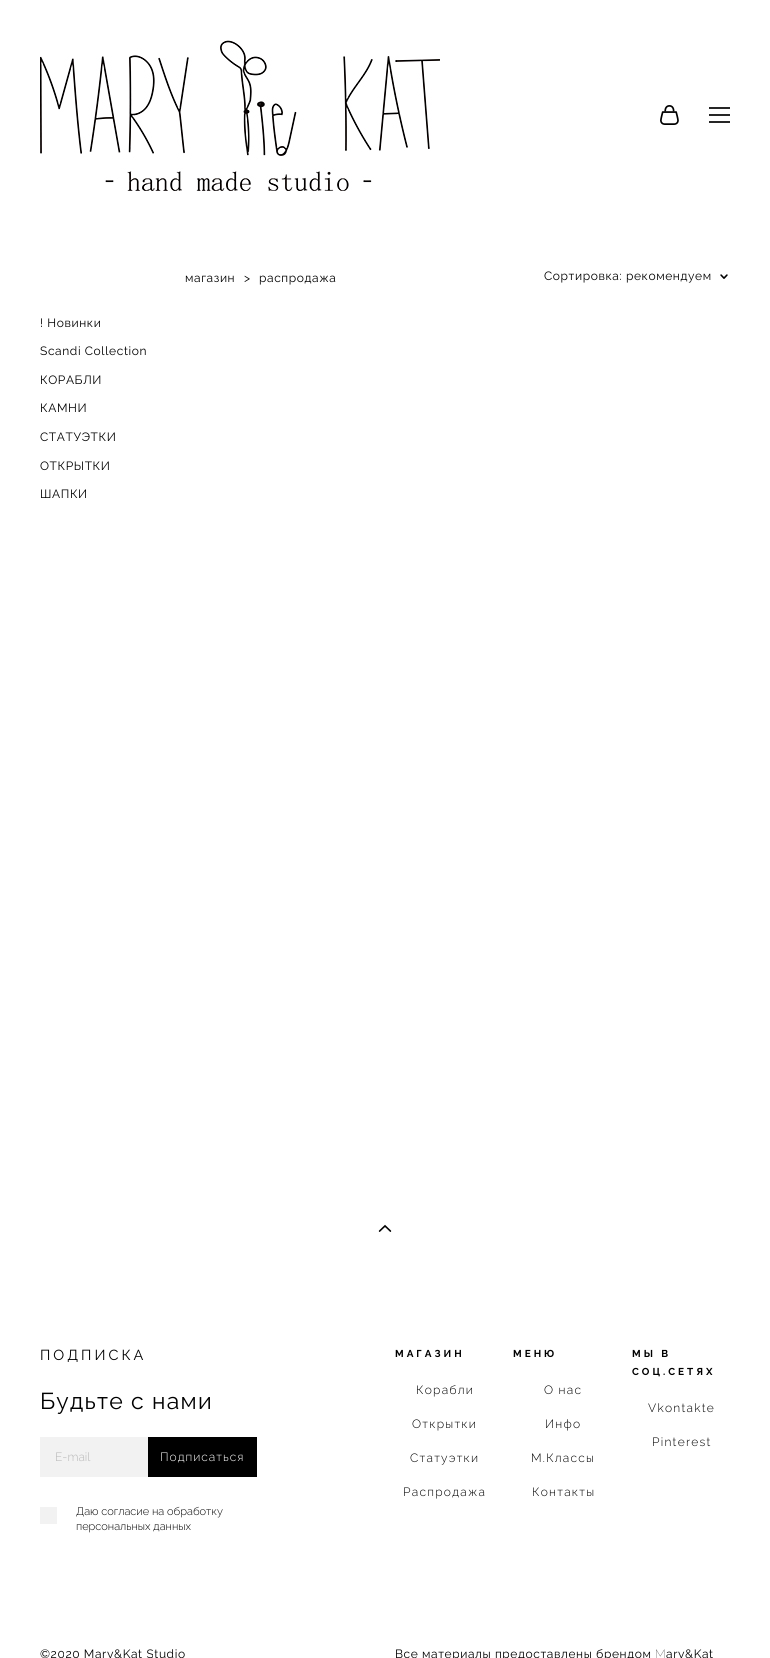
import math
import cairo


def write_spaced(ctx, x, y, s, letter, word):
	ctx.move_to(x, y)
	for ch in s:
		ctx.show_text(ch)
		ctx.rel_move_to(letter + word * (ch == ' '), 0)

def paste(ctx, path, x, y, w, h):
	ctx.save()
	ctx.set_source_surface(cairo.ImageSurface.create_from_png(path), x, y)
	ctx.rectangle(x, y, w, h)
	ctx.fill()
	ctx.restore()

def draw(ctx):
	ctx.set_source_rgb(1, 1, 1)
	ctx.paint()
	paste(ctx, 'media/1.png', 40, 40, 400, 151)
	paste(ctx, 'media/2.png', 660, 105, 19, 20)
	ctx.set_source_rgb(0.149, 0.149, 0.149)
	ctx.rectangle(709, 107, 21, 2)
	ctx.rectangle(709, 114, 21, 2)
	ctx.rectangle(709, 121, 21, 2)
	ctx.fill()
	ctx.select_font_face('Raleway')
	ctx.set_font_size(12)
	ctx.set_source_rgb(0, 0, 0)
	for x, y, s in [
		(185, 282, 'магазин'),
		(244, 282, '>'),
		(259, 282, 'распродажа'),
		(544, 280, 'Сортировка: рекомендуем'),
	]:
		write_spaced(ctx, x, y, s, 0.6, 0)
	paste(ctx, 'media/3.png', 720, 274, 8, 5)
	for x, y, s in [
		(40, 327, '! Новинки'),
		(40, 355, 'Scandi Collection'),
		(40, 384, 'КОРАБЛИ'),
		(40, 412, 'КАМНИ'),
		(40, 441, 'СТАТУЭТКИ'),
		(40, 470, 'ОТКРЫТКИ'),
		(40, 498, 'ШАПКИ'),
	]:
		write_spaced(ctx, x, y, s, 0.6, 0)
	paste(ctx, 'media/4.png', 378, 1224, 14, 8)
	ctx.set_font_size(14.5)
	write_spaced(ctx, 40, 1360, 'ПОДПИСКА', 3, 0)
	ctx.set_font_size(23)
	write_spaced(ctx, 40, 1409, 'Будьте с нами', 1.25, 0)
	ctx.set_source_rgb(0.949, 0.949, 0.949)
	ctx.rectangle(40, 1437, 108, 40)
	ctx.fill()
	ctx.select_font_face('Raleway Light')
	ctx.set_font_size(12)
	ctx.set_source_rgb(0.722, 0.722, 0.722)
	ctx.move_to(55, 1461)
	ctx.show_text('E-mail')
	ctx.set_source_rgb(0, 0, 0)
	ctx.rectangle(148, 1437, 109, 40)
	ctx.fill()
	ctx.set_source_rgb(1, 1, 1)
	write_spaced(ctx, 160, 1461, 'Подписаться', 1, 0)
	ctx.set_source_rgb(0.949, 0.949, 0.949)
	ctx.rectangle(40, 1507, 17, 17)
	ctx.fill()
	ctx.set_font_size(11)
	ctx.set_source_rgb(0, 0, 0)
	ctx.move_to(76, 1515)
	ctx.show_text('Даю согласие на обработку')
	ctx.move_to(76, 1530)
	ctx.show_text('персональных данных')
	ctx.select_font_face('Raleway', cairo.FONT_SLANT_NORMAL, cairo.FONT_WEIGHT_BOLD)
	ctx.set_font_size(10)
	write_spaced(ctx, 395, 1357, 'МАГАЗИН', 3, 0)
	ctx.select_font_face('Raleway Light')
	ctx.set_font_size(12)
	for x, y, s in [
		(416, 1394, 'Корабли'),
		(412, 1428, 'Открытки'),
		(410, 1462, 'Статуэтки'),
		(403, 1496, 'Распродажа'),
	]:
		write_spaced(ctx, x, y, s, 1.25, 0)
	ctx.select_font_face('Raleway', cairo.FONT_SLANT_NORMAL, cairo.FONT_WEIGHT_BOLD)
	ctx.set_font_size(10)
	write_spaced(ctx, 513, 1357, 'МЕНЮ', 3, 0)
	ctx.select_font_face('Raleway Light')
	ctx.set_font_size(12)
	for x, y, s in [
		(544, 1394, 'О нас'),
		(545, 1428, 'Инфо'),
		(531, 1462, 'М.Классы'),
		(532, 1496, 'Контакты'),
	]:
		write_spaced(ctx, x, y, s, 1.25, 0)
	ctx.select_font_face('Raleway', cairo.FONT_SLANT_NORMAL, cairo.FONT_WEIGHT_BOLD)
	ctx.set_font_size(10)
	write_spaced(ctx, 632, 1357, 'МЫ В', 3, 0)
	write_spaced(ctx, 632, 1375, 'СОЦ.СЕТЯХ', 3, 0)
	ctx.select_font_face('Raleway Light')
	ctx.set_font_size(12)
	write_spaced(ctx, 648, 1412, 'Vkontakte', 1.25, 0)
	write_spaced(ctx, 652, 1446, 'Pinterest', 1.25, 0)
	ctx.select_font_face('Raleway')
	write_spaced(ctx, 40, 1658, '©2020 Mary&Kat Studio', 0.6, 0)
	write_spaced(ctx, 395, 1658, 'Все материалы предоставлены брендом', 0.6, 0)
	ctx.select_font_face('Raleway Thin')
	write_spaced(ctx, 655, 1658, 'M', 0.6, 0)
	ctx.select_font_face('Raleway')
	write_spaced(ctx, 666, 1658, 'ary&Kat', 0.6, 0)


surface = cairo.ImageSurface(cairo.FORMAT_RGB24, 770, 1658)
ctx = cairo.Context(surface)
options = cairo.FontOptions()
options.set_hint_metrics(cairo.HINT_METRICS_OFF)
options.set_hint_style(cairo.HINT_STYLE_NONE)
ctx.set_font_options(options)
ctx.set_miter_limit(4)
draw(ctx)
surface.write_to_png('image.png')
